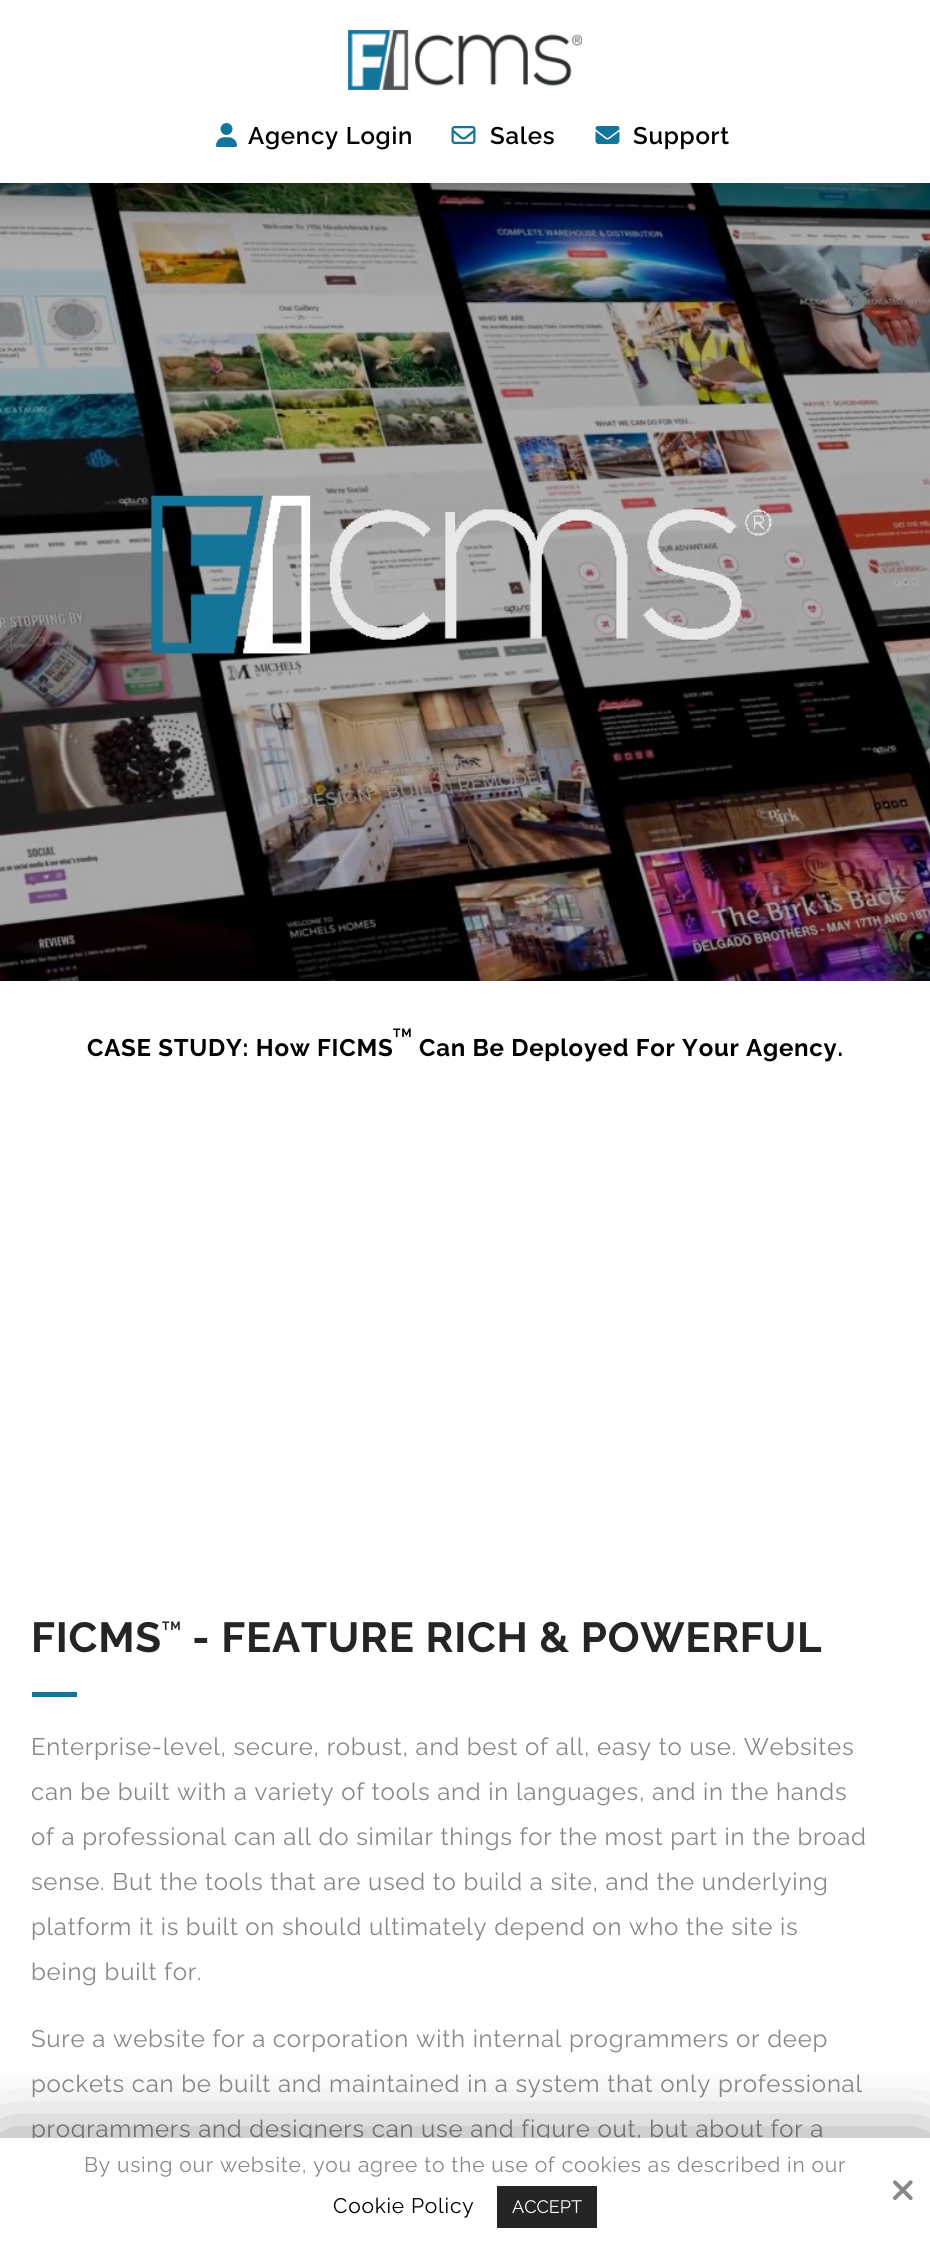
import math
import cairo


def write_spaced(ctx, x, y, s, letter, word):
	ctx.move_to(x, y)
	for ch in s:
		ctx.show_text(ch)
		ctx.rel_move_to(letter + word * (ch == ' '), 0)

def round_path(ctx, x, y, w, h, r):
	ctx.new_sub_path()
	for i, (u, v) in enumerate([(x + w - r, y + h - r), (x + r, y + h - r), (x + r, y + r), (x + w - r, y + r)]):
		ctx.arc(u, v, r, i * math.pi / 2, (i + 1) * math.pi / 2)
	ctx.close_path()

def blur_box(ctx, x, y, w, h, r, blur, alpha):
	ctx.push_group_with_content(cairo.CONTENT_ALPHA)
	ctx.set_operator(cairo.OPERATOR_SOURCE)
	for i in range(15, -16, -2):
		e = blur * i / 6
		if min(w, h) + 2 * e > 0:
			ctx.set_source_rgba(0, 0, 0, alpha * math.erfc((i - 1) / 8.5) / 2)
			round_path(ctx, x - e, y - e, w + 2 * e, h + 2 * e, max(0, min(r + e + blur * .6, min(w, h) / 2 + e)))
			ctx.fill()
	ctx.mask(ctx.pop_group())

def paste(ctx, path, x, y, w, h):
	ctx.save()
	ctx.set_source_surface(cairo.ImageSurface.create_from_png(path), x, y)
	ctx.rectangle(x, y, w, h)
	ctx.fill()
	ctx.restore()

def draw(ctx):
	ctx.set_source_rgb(1, 1, 1)
	ctx.paint()
	paste(ctx, 'media/1.png', 348, 30, 234, 60)
	paste(ctx, 'media/2.png', 216, 123, 21, 24)
	ctx.select_font_face('Raleway SemiBold')
	ctx.set_font_size(24)
	ctx.set_source_rgb(0, 0, 0)
	write_spaced(ctx, 248, 144, 'Agency Login', 0.75, 0)
	paste(ctx, 'media/3.png', 451, 126, 25, 18)
	write_spaced(ctx, 490, 144, 'Sales', 0.75, 0)
	paste(ctx, 'media/4.png', 595, 126, 25, 18)
	write_spaced(ctx, 633, 144, 'Support', 0.75, 0)
	paste(ctx, 'media/5.png', 0, 183, 930, 798)
	ctx.select_font_face('Raleway', cairo.FONT_SLANT_NORMAL, cairo.FONT_WEIGHT_BOLD)
	ctx.set_font_size(12)
	write_spaced(ctx, 393, 1037, 'TM', 0.75, 0)
	ctx.set_font_size(24)
	write_spaced(ctx, 87, 1056, 'CASE STUDY: How FICMS', 0.75, 0)
	write_spaced(ctx, 419, 1056, 'Can Be Deployed For Your Agency.', 0.75, 0)
	ctx.set_font_size(42)
	ctx.set_source_rgb(0.145, 0.145, 0.145)
	write_spaced(ctx, 31, 1652, 'FICMS', 0.75, 0)
	ctx.set_font_size(12)
	write_spaced(ctx, 162, 1630, 'TM', 0.75, 0)
	ctx.set_font_size(42)
	write_spaced(ctx, 192, 1652, '- FEATURE RICH & POWERFUL', 0.75, 0)
	ctx.set_source_rgb(0.078, 0.459, 0.608)
	ctx.rectangle(32, 1692, 45, 5)
	ctx.fill()
	ctx.select_font_face('Raleway')
	ctx.set_font_size(24)
	ctx.set_source_rgb(0.533, 0.533, 0.533)
	for x, y, s in [
		(31, 1755, 'Enterprise-level, secure, robust, and best of all, easy to use. Websites'),
		(31, 1800, 'can be built with a variety of tools and in languages, and in the hands'),
		(31, 1845, 'of a professional can all do similar things for the most part in the broad'),
		(31, 1890, 'sense. But the tools that are used to build a site, and the underlying'),
		(31, 1935, 'platform it is built on should ultimately depend on who the site is'),
		(31, 1980, 'being built for.'),
		(31, 2047, 'Sure a website for a corporation with internal programmers or deep'),
		(31, 2092, 'pockets can be built and maintained in a system that only professional'),
		(31, 2137, 'programmers and designers can use and figure out, but about for a'),
	]:
		write_spaced(ctx, x, y, s, 0.75, 0)
	ctx.set_source_rgb(0, 0, 0)
	blur_box(ctx, 0, 2145, 930, 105, 0, 37.5, 0.5)
	ctx.set_source_rgb(1, 1, 1)
	ctx.rectangle(0, 2138, 930, 104)
	ctx.fill()
	ctx.set_font_size(21)
	ctx.set_source_rgb(0.533, 0.533, 0.533)
	write_spaced(ctx, 84, 2172, 'By using our website, you agree to the use of cookies as described in our', 0.75, 0)
	ctx.set_source_rgb(0, 0, 0)
	write_spaced(ctx, 333, 2213, 'Cookie Policy', 0.75, 0)
	ctx.set_source_rgb(0.145, 0.145, 0.145)
	ctx.rectangle(497, 2186, 100, 42)
	ctx.fill()
	ctx.set_font_size(18)
	ctx.set_source_rgb(1, 1, 1)
	ctx.move_to(512, 2213)
	ctx.show_text('ACCEPT')
	paste(ctx, 'media/6.png', 893, 2180, 20, 20)


surface = cairo.ImageSurface(cairo.FORMAT_RGB24, 930, 2242)
ctx = cairo.Context(surface)
options = cairo.FontOptions()
options.set_hint_metrics(cairo.HINT_METRICS_OFF)
options.set_hint_style(cairo.HINT_STYLE_NONE)
ctx.set_font_options(options)
ctx.set_miter_limit(4)
draw(ctx)
surface.write_to_png('image.png')
